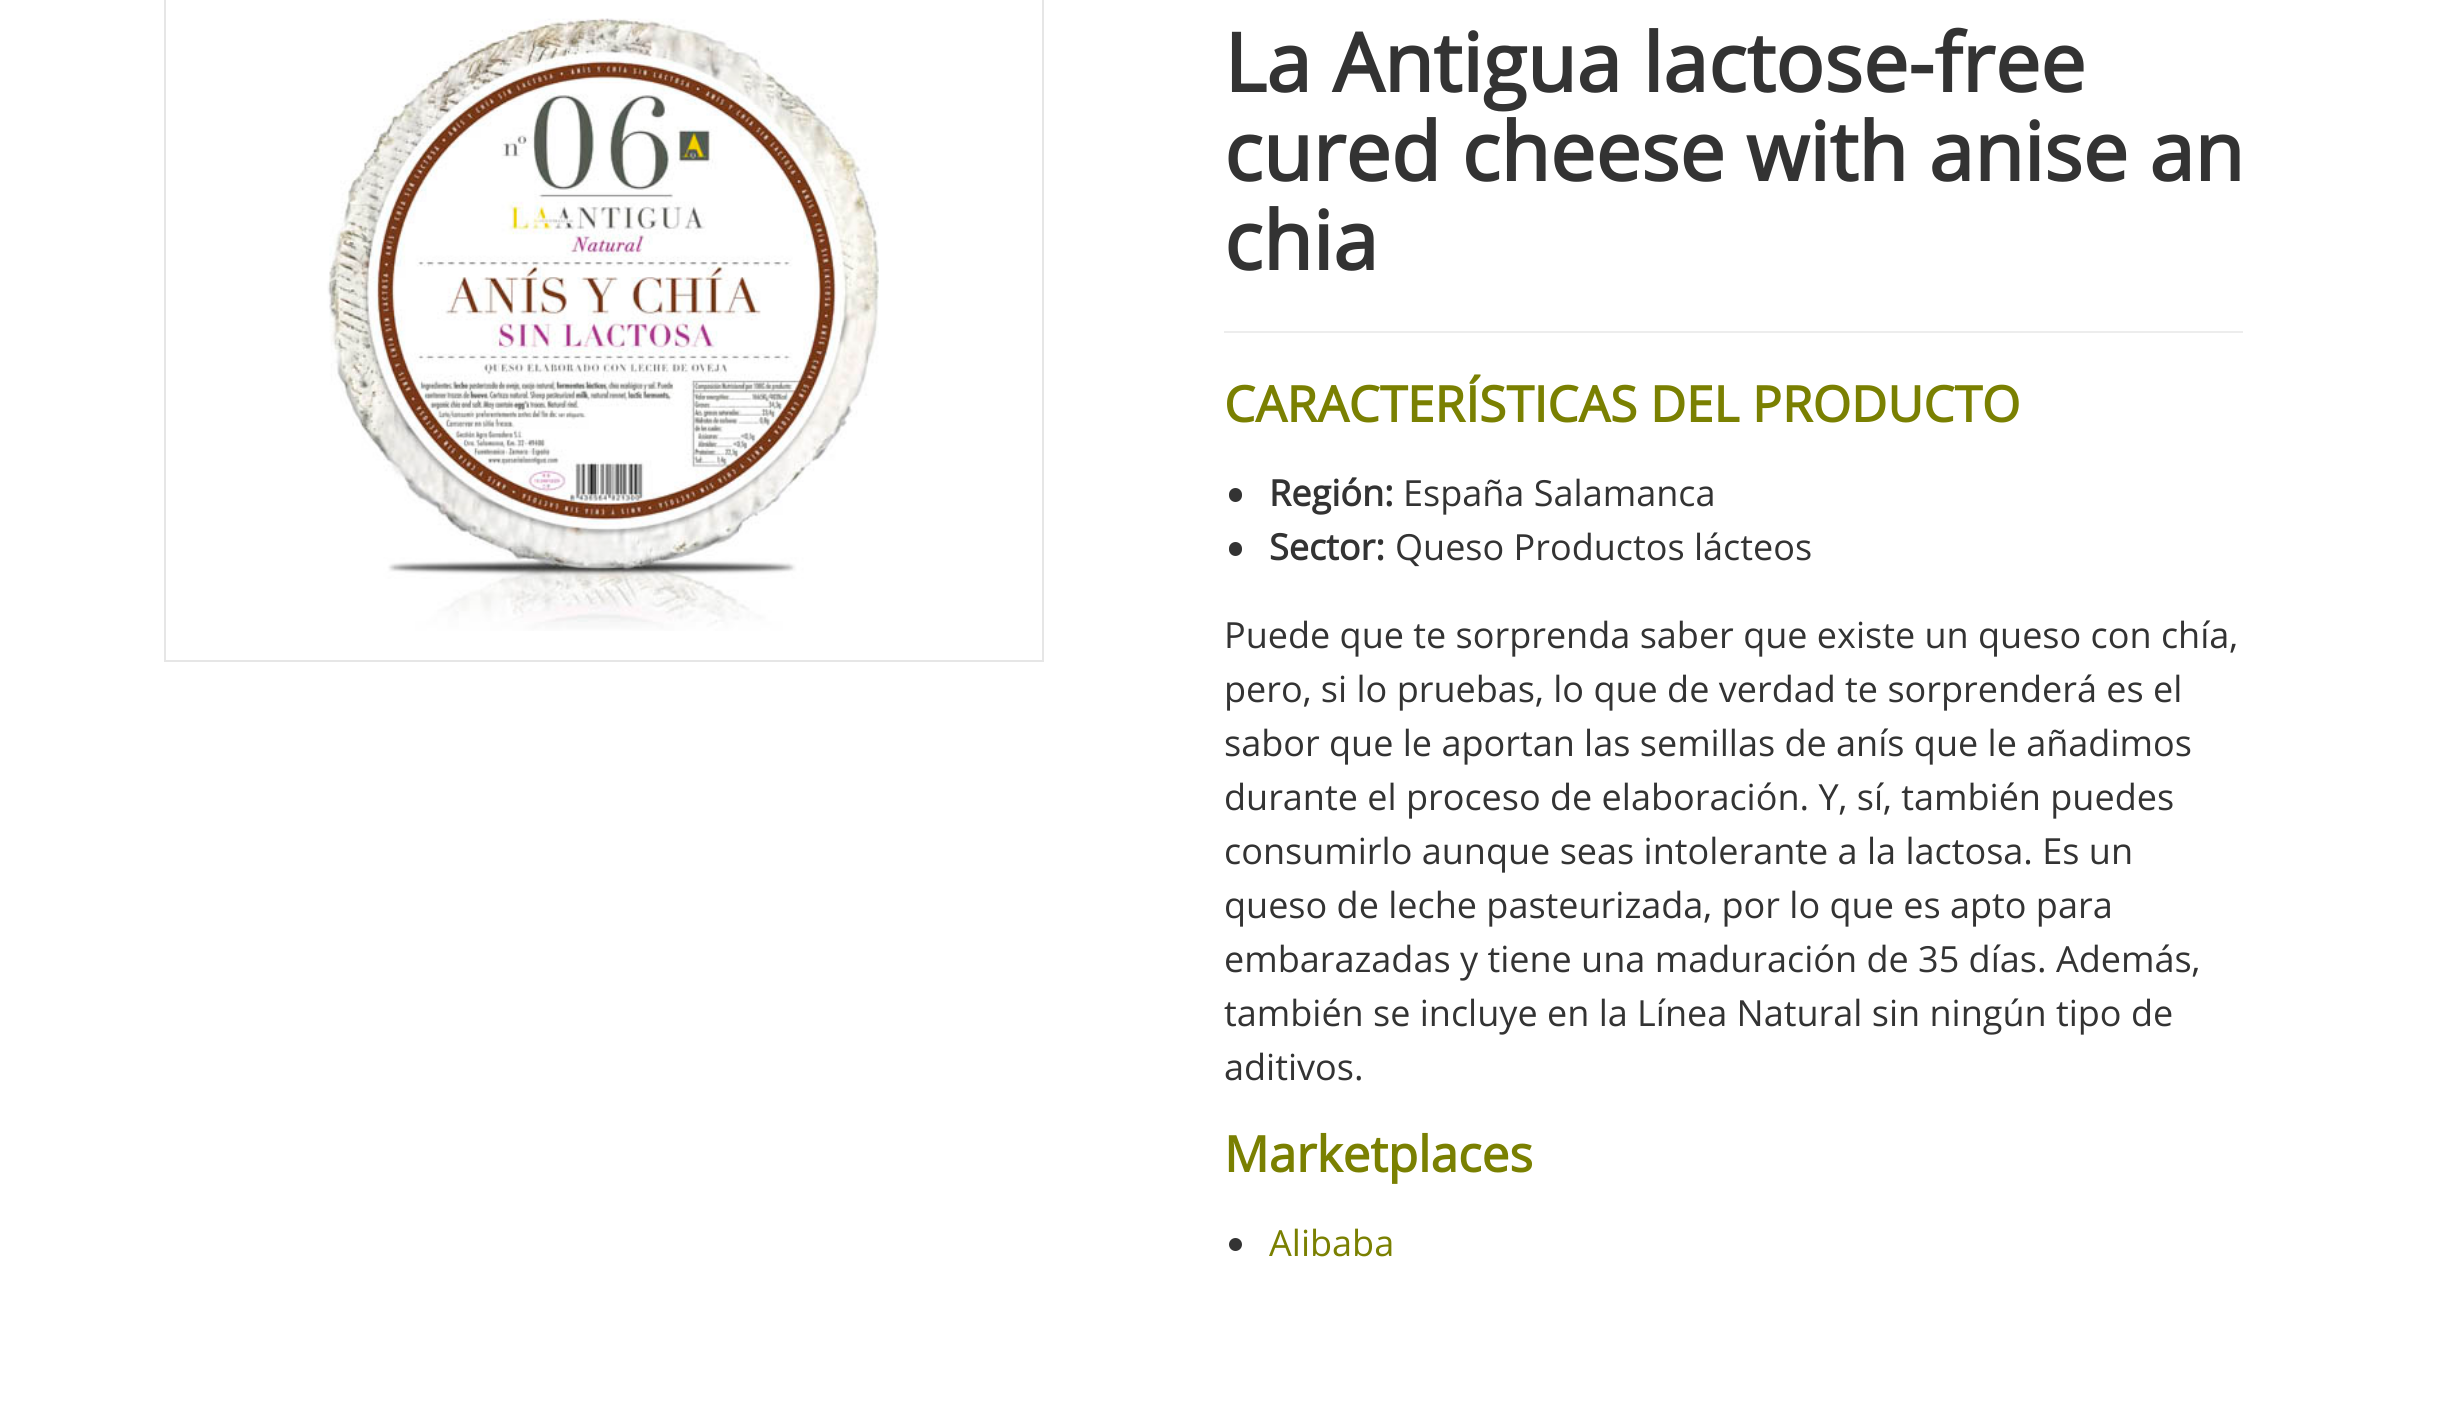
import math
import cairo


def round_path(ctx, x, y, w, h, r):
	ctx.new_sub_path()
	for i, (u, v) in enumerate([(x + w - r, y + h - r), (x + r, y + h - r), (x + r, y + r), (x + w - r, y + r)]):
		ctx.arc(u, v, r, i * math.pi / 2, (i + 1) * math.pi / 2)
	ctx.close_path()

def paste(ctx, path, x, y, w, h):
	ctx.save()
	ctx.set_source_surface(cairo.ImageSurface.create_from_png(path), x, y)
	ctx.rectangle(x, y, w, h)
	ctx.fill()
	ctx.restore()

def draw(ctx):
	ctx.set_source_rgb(1, 1, 1)
	ctx.paint()
	ctx.rectangle(165, -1, 878, 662)
	ctx.set_source_rgb(0.902, 0.902, 0.902)
	ctx.stroke()
	paste(ctx, 'media/1.png', 327, 18, 552, 613)
	ctx.select_font_face('Open Sans', cairo.FONT_SLANT_NORMAL, cairo.FONT_WEIGHT_BOLD)
	ctx.set_font_size(81)
	ctx.set_source_rgb(0.2, 0.2, 0.2)
	for x, y, s in [
		(1224, 92, 'La Antigua lactose-free'),
		(1224, 181, 'cured cheese with anise an'),
		(1224, 270, 'chia'),
	]:
		ctx.move_to(x, y)
		ctx.show_text(s)
	ctx.set_source_rgb(0.929, 0.929, 0.929)
	ctx.rectangle(1224, 331, 1019, 2)
	ctx.fill()
	ctx.set_font_size(49.5)
	ctx.set_source_rgb(0.478, 0.502, 0.004)
	ctx.move_to(1224, 422)
	ctx.show_text('CARACTERÍSTICAS DEL PRODUCTO')
	ctx.set_source_rgb(0.2, 0.2, 0.2)
	round_path(ctx, 1229, 488, 13, 14, 6.5)
	ctx.fill()
	ctx.set_font_size(36)
	ctx.move_to(1269, 506)
	ctx.show_text('Región:')
	ctx.select_font_face('Open Sans')
	ctx.move_to(1403, 506)
	ctx.show_text('España Salamanca')
	round_path(ctx, 1229, 542, 13, 14, 6.5)
	ctx.fill()
	ctx.select_font_face('Open Sans', cairo.FONT_SLANT_NORMAL, cairo.FONT_WEIGHT_BOLD)
	ctx.move_to(1269, 560)
	ctx.show_text('Sector:')
	ctx.select_font_face('Open Sans')
	for x, y, s in [
		(1395, 560, 'Queso Productos lácteos'),
		(1224, 648, 'Puede que te sorprenda saber que existe un queso con chía,'),
		(1224, 702, 'pero, si lo pruebas, lo que de verdad te sorprenderá es el'),
		(1224, 756, 'sabor que le aportan las semillas de anís que le añadimos'),
		(1224, 810, 'durante el proceso de elaboración. Y, sí, también puedes'),
		(1224, 864, 'consumirlo aunque seas intolerante a la lactosa. Es un'),
		(1224, 918, 'queso de leche pasteurizada, por lo que es apto para'),
		(1224, 972, 'embarazadas y tiene una maduración de 35 días. Además,'),
		(1224, 1026, 'también se incluye en la Línea Natural sin ningún tipo de'),
		(1224, 1080, 'aditivos.'),
	]:
		ctx.move_to(x, y)
		ctx.show_text(s)
	ctx.select_font_face('Open Sans', cairo.FONT_SLANT_NORMAL, cairo.FONT_WEIGHT_BOLD)
	ctx.set_font_size(49.5)
	ctx.set_source_rgb(0.478, 0.502, 0.004)
	ctx.move_to(1224, 1172)
	ctx.show_text('Marketplaces')
	ctx.set_source_rgb(0.2, 0.2, 0.2)
	ctx.new_path()
	ctx.arc(1235.5, 1244.5, 6.5, 0, 2 * math.pi)
	ctx.fill()
	ctx.select_font_face('Open Sans')
	ctx.set_font_size(36)
	ctx.set_source_rgb(0.478, 0.502, 0.004)
	ctx.move_to(1269, 1256)
	ctx.show_text('Alibaba')


surface = cairo.ImageSurface(cairo.FORMAT_RGB24, 2440, 1412)
ctx = cairo.Context(surface)
options = cairo.FontOptions()
options.set_hint_metrics(cairo.HINT_METRICS_OFF)
options.set_hint_style(cairo.HINT_STYLE_NONE)
ctx.set_font_options(options)
ctx.set_miter_limit(4)
draw(ctx)
surface.write_to_png('image.png')
